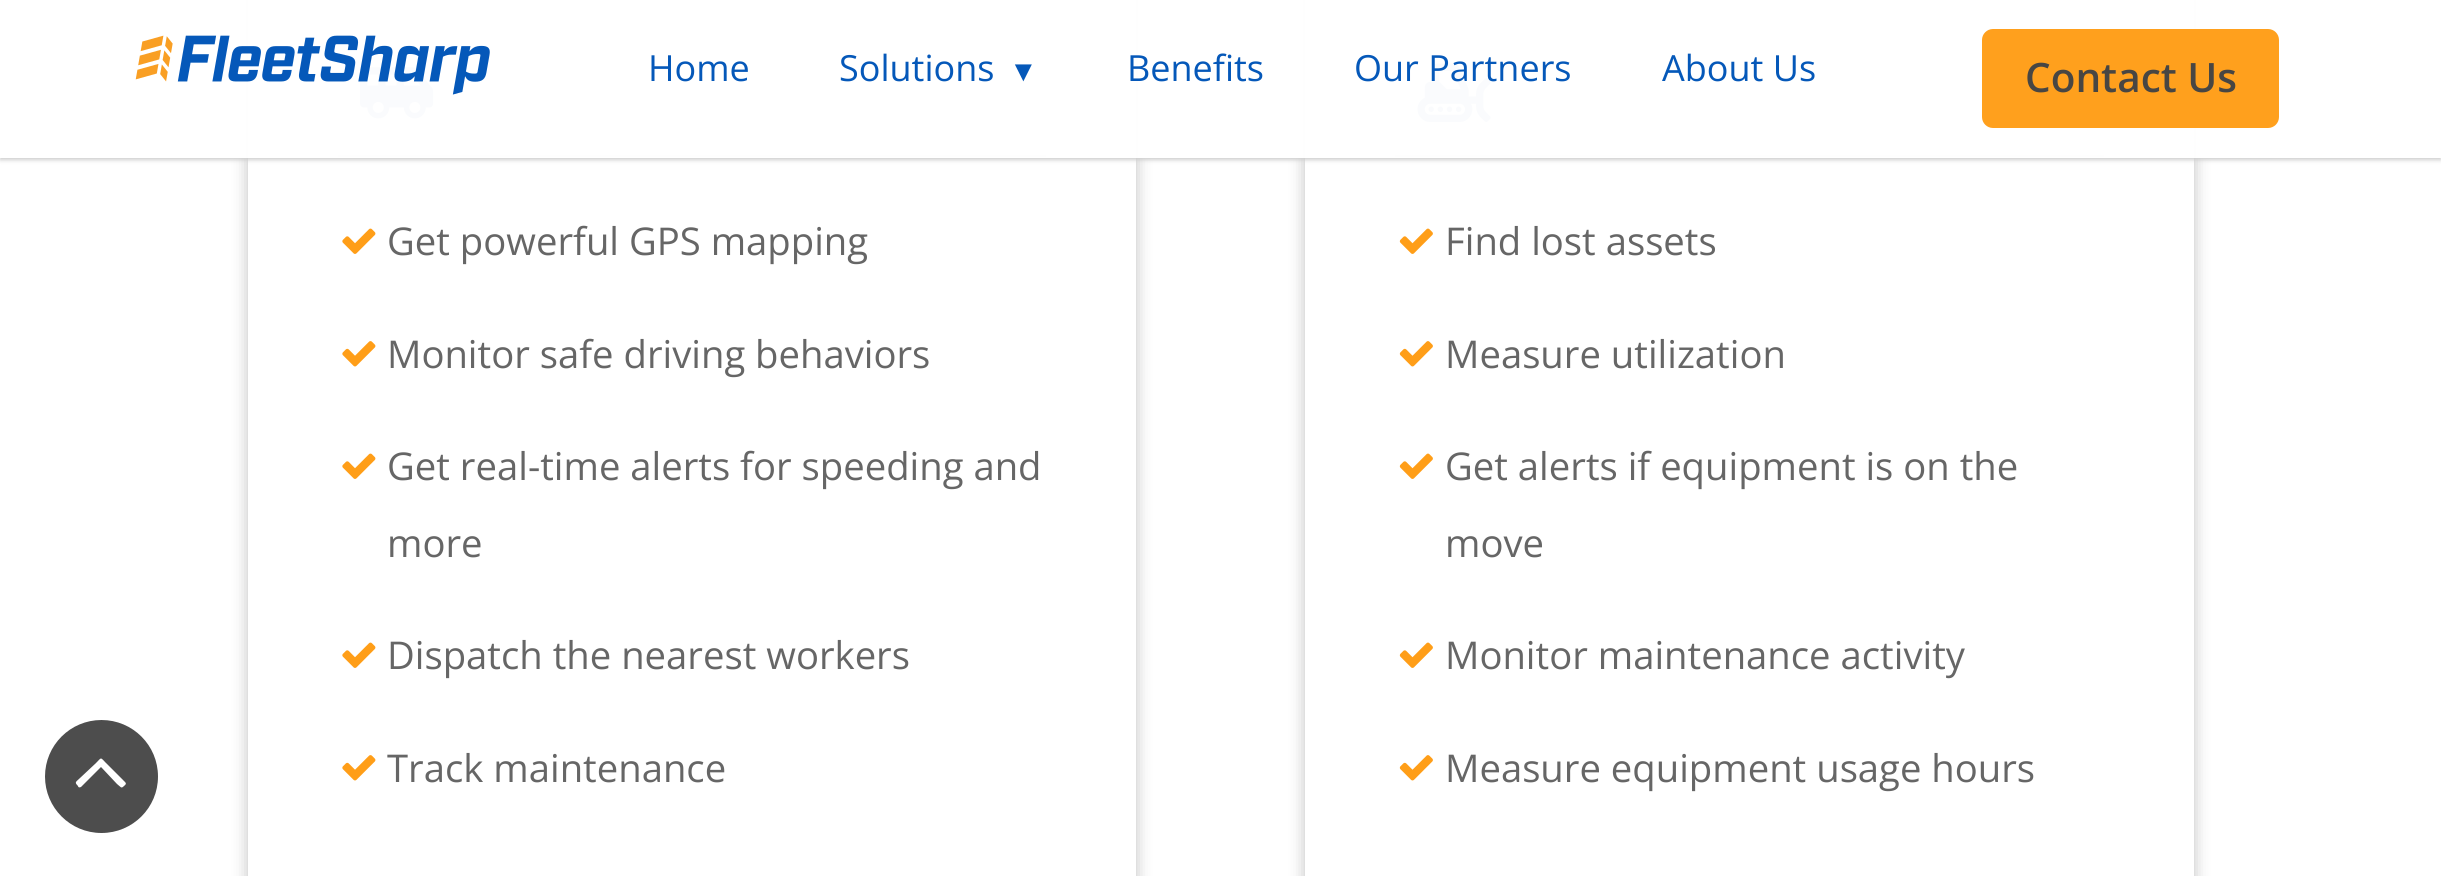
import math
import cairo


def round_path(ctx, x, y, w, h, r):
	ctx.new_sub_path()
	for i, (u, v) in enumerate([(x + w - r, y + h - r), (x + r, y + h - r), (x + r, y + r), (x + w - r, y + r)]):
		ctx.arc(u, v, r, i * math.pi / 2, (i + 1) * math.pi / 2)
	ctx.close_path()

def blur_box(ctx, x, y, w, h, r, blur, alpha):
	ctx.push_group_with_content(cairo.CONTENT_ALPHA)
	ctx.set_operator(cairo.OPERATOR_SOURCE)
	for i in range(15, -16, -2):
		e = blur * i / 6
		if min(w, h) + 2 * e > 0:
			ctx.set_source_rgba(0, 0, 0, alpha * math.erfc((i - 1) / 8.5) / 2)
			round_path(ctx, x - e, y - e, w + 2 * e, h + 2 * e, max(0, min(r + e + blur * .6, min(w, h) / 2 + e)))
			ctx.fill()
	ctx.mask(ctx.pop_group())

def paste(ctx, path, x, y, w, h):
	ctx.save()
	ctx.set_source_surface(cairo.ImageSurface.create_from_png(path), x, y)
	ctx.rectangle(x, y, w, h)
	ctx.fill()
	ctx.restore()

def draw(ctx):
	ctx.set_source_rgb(1, 1, 1)
	ctx.paint()
	ctx.set_source_rgb(0.302, 0.302, 0.302)
	ctx.arc(101.5, 776.5, 56.5, 0, 2 * math.pi)
	ctx.fill()
	ctx.set_source_rgb(1, 1, 1)
	ctx.new_path()
	ctx.move_to(125, 782)
	ctx.curve_to(127, 784, 125, 785, 124, 786)
	ctx.curve_to(121, 789, 121, 787, 117, 784)
	ctx.line_to(101, 767)
	ctx.line_to(81, 787)
	ctx.curve_to(79, 788, 78, 787, 78, 786)
	ctx.curve_to(74, 782, 76, 782, 80, 778)
	ctx.line_to(96, 763)
	ctx.curve_to(102, 757, 100, 757, 106, 763)
	ctx.close_path()
	ctx.fill()
	ctx.save()
	ctx.set_fill_rule(cairo.FILL_RULE_EVEN_ODD)
	ctx.new_path()
	ctx.move_to(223, 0)
	ctx.line_to(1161, 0)
	ctx.line_to(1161, 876)
	ctx.line_to(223, 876)
	ctx.close_path()
	ctx.move_to(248, -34)
	ctx.line_to(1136, -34)
	ctx.line_to(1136, 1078)
	ctx.line_to(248, 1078)
	ctx.close_path()
	ctx.clip()
	ctx.set_source_rgb(0, 0, 0)
	blur_box(ctx, 248, -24, 888, 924, 0, 8, 0.25)
	ctx.restore()
	ctx.set_source_rgb(0.812, 0.812, 0.812)
	ctx.rectangle(338, 155, 708, 2)
	ctx.fill()
	paste(ctx, 'media/2.png', 360, 67, 74, 52)
	ctx.set_source_rgb(0, 0, 0)
	blur_box(ctx, 1305, -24, 889, 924, 0, 8, 0.25)
	ctx.set_source_rgb(1, 1, 1)
	ctx.rectangle(1305, 0, 889, 876)
	ctx.fill()
	ctx.set_source_rgb(0.812, 0.812, 0.812)
	ctx.rectangle(1395, 155, 709, 2)
	ctx.fill()
	paste(ctx, 'media/5.png', 1417, 63, 74, 60)
	ctx.save()
	ctx.set_fill_rule(cairo.FILL_RULE_EVEN_ODD)
	ctx.new_path()
	ctx.move_to(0, 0)
	ctx.line_to(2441, 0)
	ctx.line_to(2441, 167)
	ctx.line_to(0, 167)
	ctx.close_path()
	ctx.move_to(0, 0)
	ctx.line_to(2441, 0)
	ctx.line_to(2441, 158)
	ctx.line_to(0, 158)
	ctx.close_path()
	ctx.clip()
	ctx.set_source_rgb(0.8, 0.8, 0.8)
	blur_box(ctx, 0, 2, 2441, 158, 0, 2, 0.98)
	ctx.restore()
	ctx.set_source_rgba(1, 1, 1, 0.98)
	ctx.rectangle(0, 0, 2441, 158)
	ctx.fill()
	paste(ctx, 'media/1.png', 135, 35, 355, 60)
	ctx.select_font_face('Open Sans')
	ctx.set_font_size(36)
	ctx.set_source_rgb(0.02, 0.345, 0.725)
	ctx.move_to(648, 81)
	ctx.show_text('Home')
	ctx.move_to(839, 81)
	ctx.show_text('Solutions')
	ctx.select_font_face('Liberation Sans')
	ctx.set_font_size(29)
	ctx.move_to(1009, 81)
	ctx.show_text('▼')
	ctx.select_font_face('Open Sans')
	ctx.set_font_size(36)
	for x, y, s in [
		(1127, 81, 'Benefits'),
		(1354, 81, 'Our Partners'),
		(1662, 81, 'About Us'),
	]:
		ctx.move_to(x, y)
		ctx.show_text(s)
	ctx.set_source_rgb(1, 0.627, 0.114)
	round_path(ctx, 1982, 29, 297, 99, 11)
	ctx.fill()
	ctx.select_font_face('Open Sans SemiBold')
	ctx.set_font_size(40.5)
	ctx.set_source_rgb(0.282, 0.275, 0.263)
	ctx.move_to(2025, 92)
	ctx.show_text('Contact Us')
	paste(ctx, 'media/3.png', 342, 228, 34, 26)
	ctx.select_font_face('Open Sans')
	ctx.set_font_size(38.25)
	ctx.set_source_rgb(0.4, 0.4, 0.4)
	ctx.move_to(387, 255)
	ctx.show_text('Get powerful GPS mapping')
	paste(ctx, 'media/4.png', 342, 341, 34, 26)
	ctx.move_to(387, 368)
	ctx.show_text('Monitor safe driving behaviors')
	paste(ctx, 'media/3.png', 342, 453, 34, 26)
	ctx.move_to(387, 480)
	ctx.show_text('Get real-time alerts for speeding and')
	ctx.move_to(387, 557)
	ctx.show_text('more')
	paste(ctx, 'media/3.png', 342, 642, 34, 26)
	ctx.move_to(387, 669)
	ctx.show_text('Dispatch the nearest workers')
	paste(ctx, 'media/4.png', 342, 755, 34, 26)
	ctx.move_to(387, 782)
	ctx.show_text('Track maintenance')
	paste(ctx, 'media/6.png', 1399, 228, 34, 26)
	ctx.move_to(1445, 255)
	ctx.show_text('Find lost assets')
	paste(ctx, 'media/7.png', 1399, 341, 34, 26)
	ctx.move_to(1445, 368)
	ctx.show_text('Measure utilization')
	paste(ctx, 'media/6.png', 1399, 453, 34, 26)
	ctx.move_to(1445, 480)
	ctx.show_text('Get alerts if equipment is on the')
	ctx.move_to(1445, 557)
	ctx.show_text('move')
	paste(ctx, 'media/6.png', 1399, 642, 34, 26)
	ctx.move_to(1445, 669)
	ctx.show_text('Monitor maintenance activity')
	paste(ctx, 'media/7.png', 1399, 755, 34, 26)
	ctx.move_to(1445, 782)
	ctx.show_text('Measure equipment usage hours')


surface = cairo.ImageSurface(cairo.FORMAT_RGB24, 2441, 876)
ctx = cairo.Context(surface)
options = cairo.FontOptions()
options.set_hint_metrics(cairo.HINT_METRICS_OFF)
options.set_hint_style(cairo.HINT_STYLE_NONE)
ctx.set_font_options(options)
ctx.set_miter_limit(4)
draw(ctx)
surface.write_to_png('image.png')
